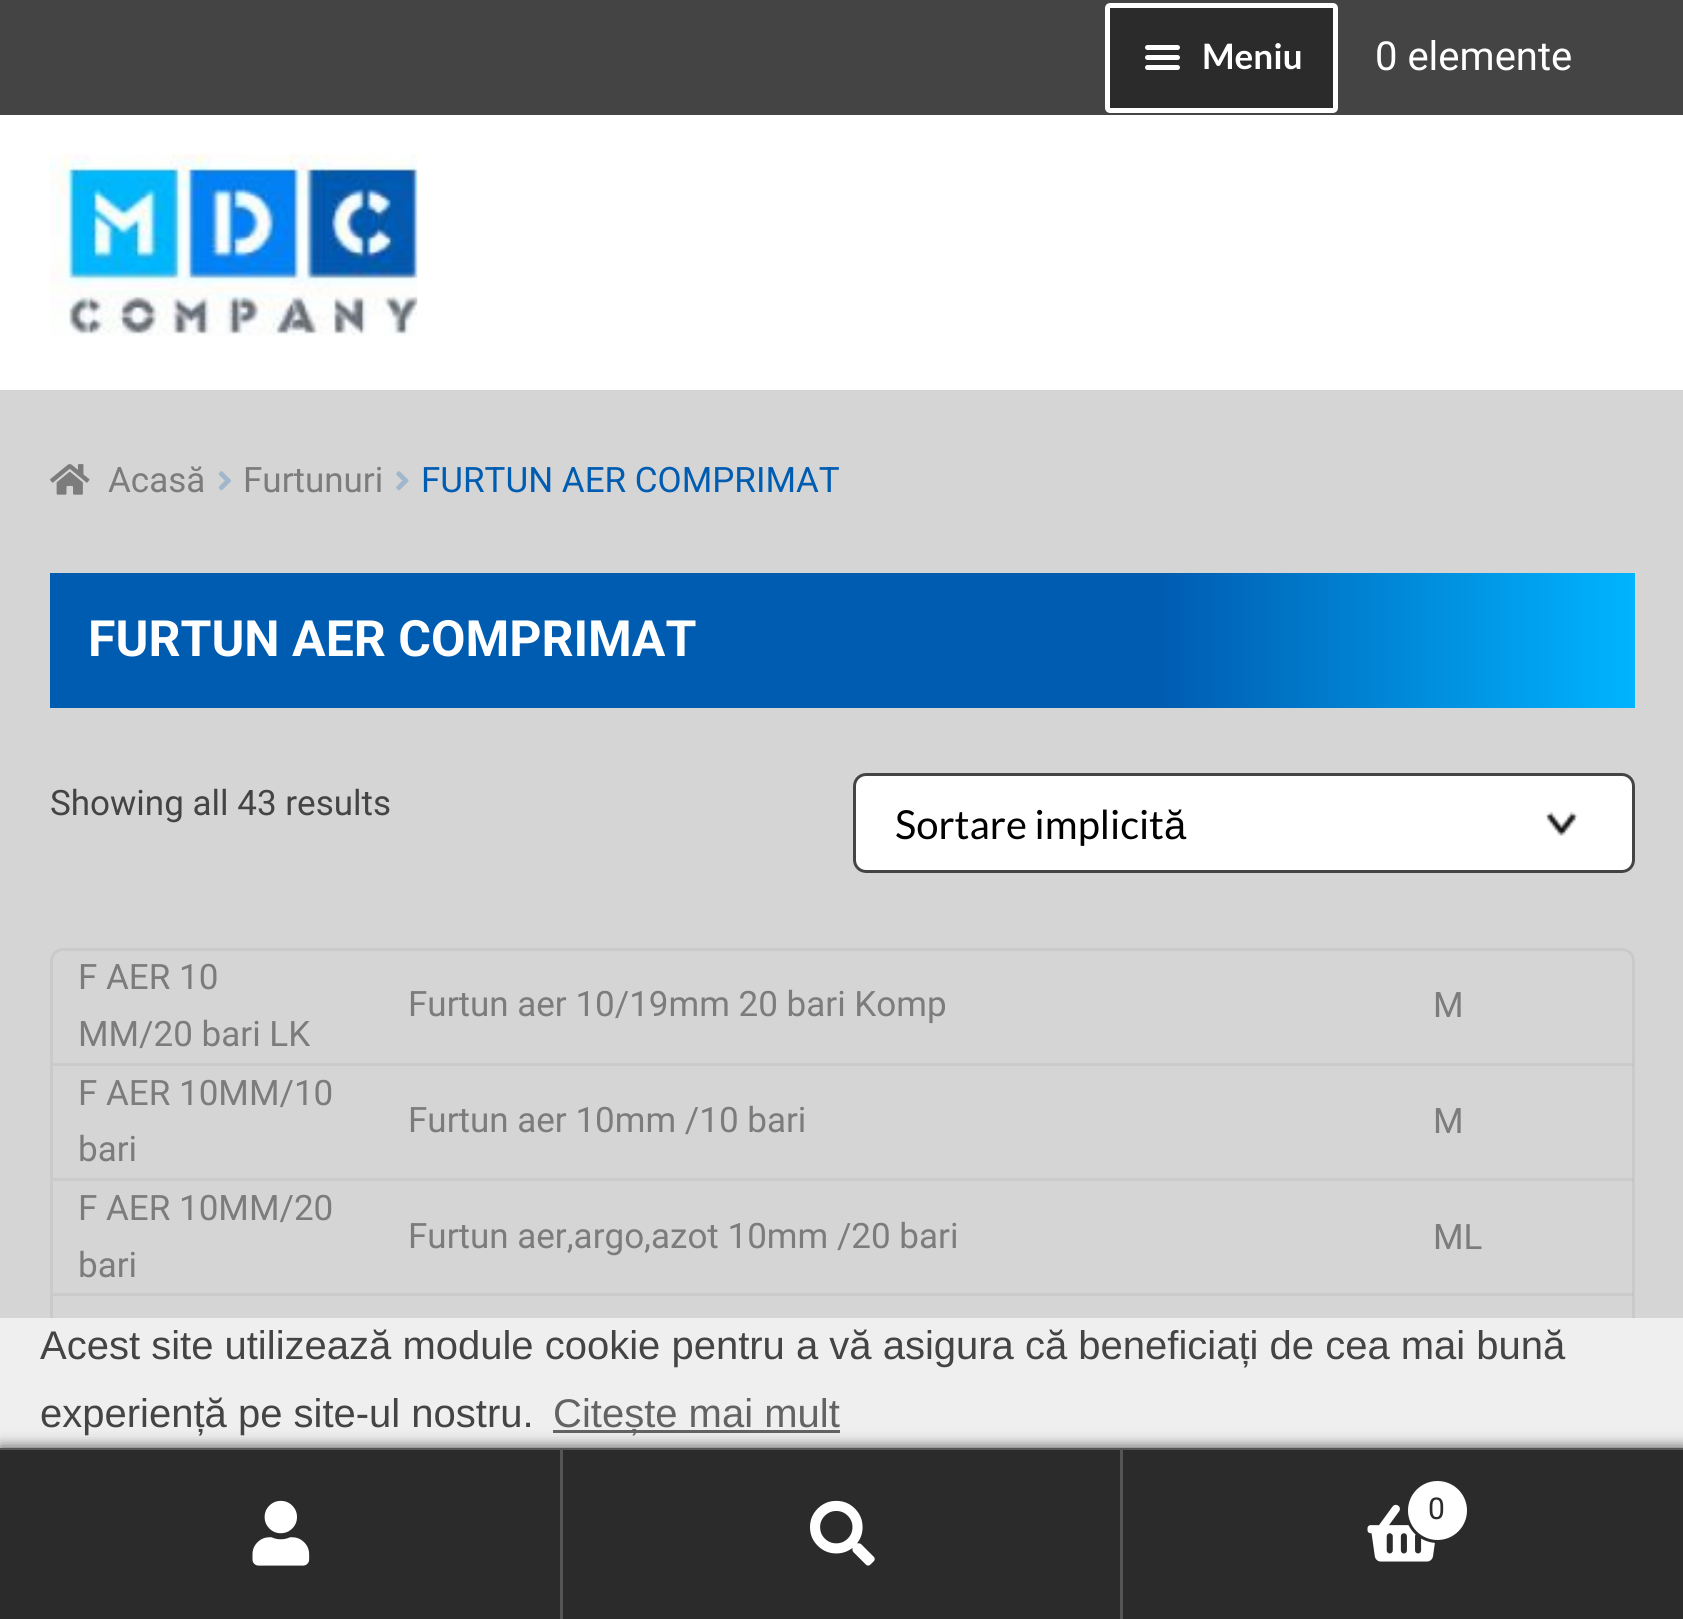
import math
import cairo


def round_path(ctx, x, y, w, h, r):
	ctx.new_sub_path()
	for i, (u, v) in enumerate([(x + w - r, y + h - r), (x + r, y + h - r), (x + r, y + r), (x + w - r, y + r)]):
		ctx.arc(u, v, r, i * math.pi / 2, (i + 1) * math.pi / 2)
	ctx.close_path()

def blur_box(ctx, x, y, w, h, r, blur, alpha):
	ctx.push_group_with_content(cairo.CONTENT_ALPHA)
	ctx.set_operator(cairo.OPERATOR_SOURCE)
	for i in range(15, -16, -2):
		e = blur * i / 6
		if min(w, h) + 2 * e > 0:
			ctx.set_source_rgba(0, 0, 0, alpha * math.erfc((i - 1) / 8.5) / 2)
			round_path(ctx, x - e, y - e, w + 2 * e, h + 2 * e, max(0, min(r + e + blur * .6, min(w, h) / 2 + e)))
			ctx.fill()
	ctx.mask(ctx.pop_group())

def paste(ctx, path, x, y, w, h):
	ctx.save()
	ctx.set_source_surface(cairo.ImageSurface.create_from_png(path), x, y)
	ctx.rectangle(x, y, w, h)
	ctx.fill()
	ctx.restore()

def draw(ctx):
	ctx.set_source_rgb(0.835, 0.835, 0.835)
	ctx.paint()
	ctx.set_source_rgb(1, 1, 1)
	ctx.rectangle(0, 115, 1683, 275)
	ctx.fill()
	ctx.set_source_rgb(0.267, 0.267, 0.267)
	ctx.rectangle(0, 0, 1683, 115)
	ctx.fill()
	ctx.set_source_rgb(0.169, 0.169, 0.169)
	round_path(ctx, 1107.5, 5.5, 228, 105, 2.5)
	ctx.fill_preserve()
	ctx.set_source_rgb(1, 1, 1)
	ctx.set_line_width(5)
	ctx.stroke()
	round_path(ctx, 1145, 45, 35, 5, 2.5)
	ctx.fill()
	round_path(ctx, 1145, 55, 35, 5, 2.5)
	ctx.fill()
	ctx.select_font_face('Lato', cairo.FONT_SLANT_NORMAL, cairo.FONT_WEIGHT_BOLD)
	ctx.set_font_size(35)
	ctx.move_to(1202, 69)
	ctx.show_text('Meniu')
	round_path(ctx, 1145, 65, 35, 5, 2.5)
	ctx.fill()
	ctx.select_font_face('Roboto')
	ctx.set_font_size(40)
	ctx.move_to(1375, 70)
	ctx.show_text('0 elemente')
	paste(ctx, 'media/1.png', 50, 153, 368, 183)
	paste(ctx, 'media/2.png', 50, 464, 40, 31)
	ctx.set_font_size(35)
	ctx.set_source_rgb(0.486, 0.486, 0.486)
	ctx.move_to(108, 492)
	ctx.show_text('Acasă')
	paste(ctx, 'media/3.png', 218, 471, 13, 20)
	ctx.move_to(243, 492)
	ctx.show_text('Furtunuri')
	paste(ctx, 'media/4.png', 396, 471, 13, 20)
	ctx.set_source_rgb(0, 0.361, 0.694)
	ctx.move_to(421, 492)
	ctx.show_text('FURTUN AER COMPRIMAT')
	gradient = cairo.LinearGradient(50, 640, 1635, 640)
	gradient.add_color_stop_rgba(0.7, 0, 0.361, 0.694, 1)
	gradient.add_color_stop_rgba(1, 0, 0.706, 1, 1)
	ctx.set_source(gradient)
	ctx.rectangle(50, 573, 1585, 135)
	ctx.fill()
	ctx.select_font_face('Roboto', cairo.FONT_SLANT_NORMAL, cairo.FONT_WEIGHT_BOLD)
	ctx.set_font_size(50)
	ctx.set_source_rgb(1, 1, 1)
	ctx.move_to(88, 656)
	ctx.show_text('FURTUN AER COMPRIMAT')
	ctx.select_font_face('Roboto')
	ctx.set_font_size(35)
	ctx.set_source_rgb(0.267, 0.267, 0.267)
	ctx.move_to(50, 815)
	ctx.show_text('Showing all 43 results')
	ctx.set_source_rgb(1, 1, 1)
	round_path(ctx, 853, 773, 782, 100, 13)
	ctx.fill()
	paste(ctx, 'media/5.png', 1545, 811, 33, 25)
	round_path(ctx, 854.5, 774.5, 779, 97, 11.5)
	ctx.set_source_rgb(0.267, 0.267, 0.267)
	ctx.set_line_width(3)
	ctx.stroke()
	ctx.select_font_face('Lato')
	ctx.set_font_size(40)
	ctx.set_source_rgb(0, 0, 0)
	ctx.move_to(895, 839)
	ctx.show_text('Sortare implicit')
	ctx.select_font_face('Liberation Sans')
	ctx.move_to(1164, 839)
	ctx.show_text('ă')
	round_path(ctx, 51.5, 949.5, 1582, 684, 11.5)
	ctx.set_source_rgb(0.792, 0.792, 0.792)
	ctx.stroke()
	ctx.set_source_rgba(0, 0, 0, 0.05)
	ctx.rectangle(53, 1063, 1580, 3)
	ctx.fill()
	ctx.select_font_face('Roboto')
	ctx.set_font_size(35)
	ctx.set_source_rgb(0.486, 0.486, 0.486)
	for x, y, s in [
		(78, 989, 'F AER 10'),
		(78, 1046, 'MM/20 bari LK'),
		(408, 1016, 'Furtun aer 10/19mm 20 bari Komp'),
		(1433, 1017, 'M'),
	]:
		ctx.move_to(x, y)
		ctx.show_text(s)
	ctx.set_source_rgba(0, 0, 0, 0.05)
	ctx.rectangle(53, 1178, 1580, 3)
	ctx.fill()
	ctx.set_source_rgb(0.486, 0.486, 0.486)
	for x, y, s in [
		(78, 1105, 'F AER 10MM/10'),
		(78, 1161, 'bari'),
		(408, 1132, 'Furtun aer 10mm /10 bari'),
		(1433, 1133, 'M'),
	]:
		ctx.move_to(x, y)
		ctx.show_text(s)
	ctx.set_source_rgba(0, 0, 0, 0.05)
	ctx.rectangle(53, 1293, 1580, 3)
	ctx.fill()
	ctx.set_source_rgb(0.486, 0.486, 0.486)
	for x, y, s in [
		(78, 1220, 'F AER 10MM/20'),
		(78, 1277, 'bari'),
		(408, 1248, 'Furtun aer,argo,azot 10mm /20 bari'),
		(1433, 1249, 'ML'),
	]:
		ctx.move_to(x, y)
		ctx.show_text(s)
	ctx.set_source_rgb(0.937, 0.937, 0.937)
	ctx.rectangle(0, 1318, 1683, 130)
	ctx.fill()
	ctx.set_source_rgb(0.388, 0.388, 0.388)
	ctx.rectangle(553, 1430, 287, 3)
	ctx.fill()
	ctx.set_source_rgb(0, 0, 0)
	blur_box(ctx, 0, 1448, 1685, 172, 0, 7.5, 0.7)
	ctx.set_source_rgb(0.333, 0.333, 0.333)
	ctx.rectangle(0, 1448, 1683, 2)
	ctx.fill()
	ctx.set_source_rgb(0.169, 0.169, 0.169)
	ctx.rectangle(0, 1450, 560, 169)
	ctx.fill()
	ctx.set_source_rgb(0.333, 0.333, 0.333)
	ctx.rectangle(560, 1450, 3, 169)
	ctx.fill()
	paste(ctx, 'media/6.png', 252, 1500, 58, 66)
	ctx.set_source_rgb(0.169, 0.169, 0.169)
	ctx.rectangle(563, 1450, 557, 169)
	ctx.fill()
	ctx.set_source_rgb(0.333, 0.333, 0.333)
	ctx.rectangle(1120, 1450, 3, 169)
	ctx.fill()
	paste(ctx, 'media/7.png', 810, 1500, 65, 66)
	ctx.set_source_rgb(0.169, 0.169, 0.169)
	ctx.rectangle(1123, 1450, 560, 169)
	ctx.fill()
	paste(ctx, 'media/8.png', 1367, 1504, 68, 58)
	ctx.set_source_rgb(1, 1, 1)
	ctx.arc(1437.5, 1510.5, 31, 0, 2 * math.pi)
	ctx.fill_preserve()
	ctx.set_source_rgb(0.169, 0.169, 0.169)
	ctx.stroke()
	ctx.set_font_size(30)
	ctx.move_to(1428, 1519)
	ctx.show_text('0')
	ctx.select_font_face('Liberation Sans')
	ctx.set_font_size(40)
	ctx.set_source_rgb(0.267, 0.267, 0.267)
	ctx.move_to(40, 1359)
	ctx.show_text('Acest site utilizează module cookie pentru a vă asigura că beneficiați de cea mai bună')
	ctx.move_to(40, 1427)
	ctx.show_text('experiență pe site-ul nostru.')
	ctx.set_source_rgb(0.388, 0.388, 0.388)
	ctx.move_to(553, 1427)
	ctx.show_text('Citește mai mult')


surface = cairo.ImageSurface(cairo.FORMAT_RGB24, 1683, 1619)
ctx = cairo.Context(surface)
options = cairo.FontOptions()
options.set_hint_metrics(cairo.HINT_METRICS_OFF)
options.set_hint_style(cairo.HINT_STYLE_NONE)
ctx.set_font_options(options)
ctx.set_miter_limit(4)
draw(ctx)
surface.write_to_png('image.png')
